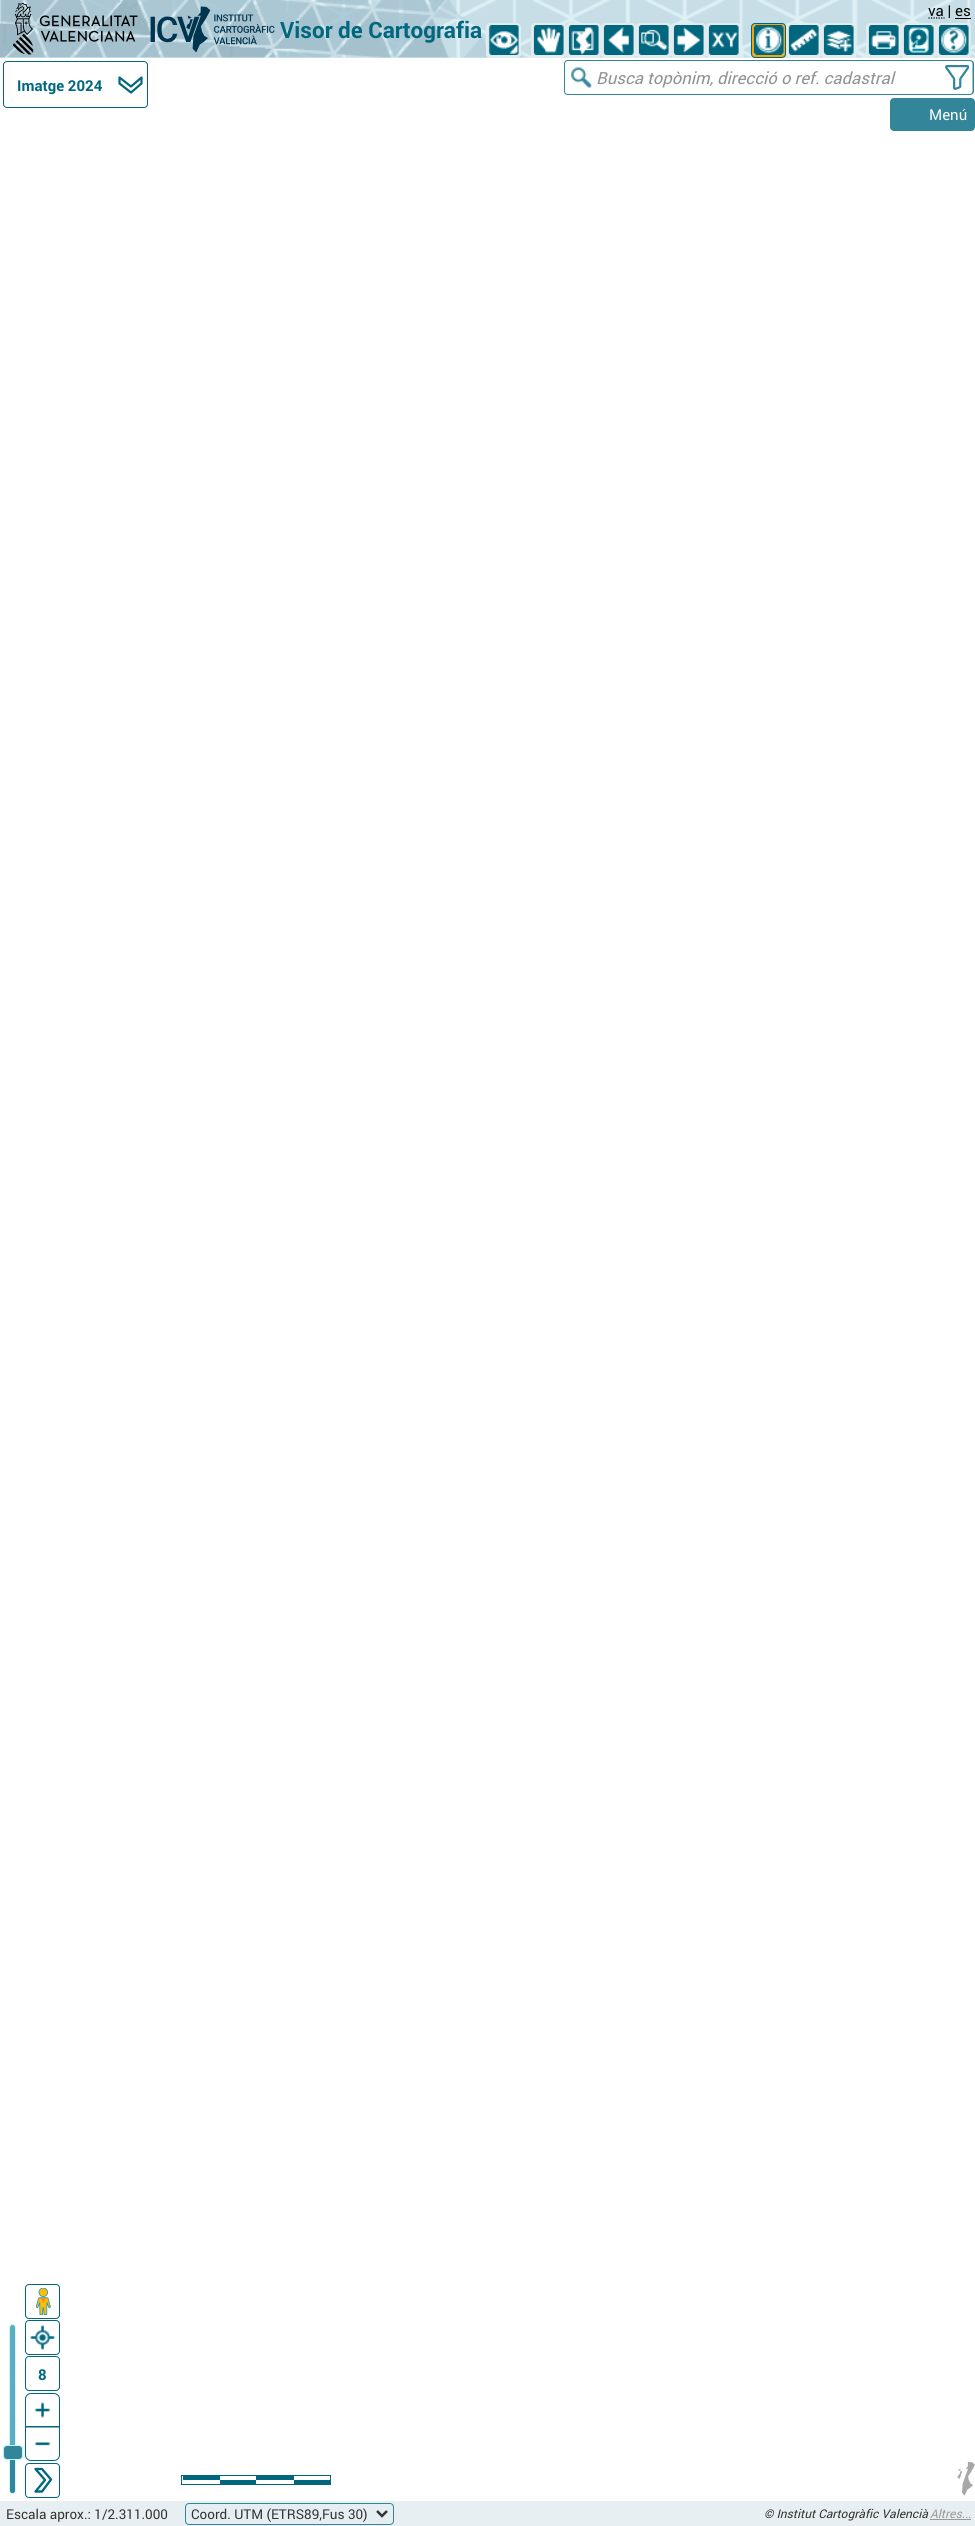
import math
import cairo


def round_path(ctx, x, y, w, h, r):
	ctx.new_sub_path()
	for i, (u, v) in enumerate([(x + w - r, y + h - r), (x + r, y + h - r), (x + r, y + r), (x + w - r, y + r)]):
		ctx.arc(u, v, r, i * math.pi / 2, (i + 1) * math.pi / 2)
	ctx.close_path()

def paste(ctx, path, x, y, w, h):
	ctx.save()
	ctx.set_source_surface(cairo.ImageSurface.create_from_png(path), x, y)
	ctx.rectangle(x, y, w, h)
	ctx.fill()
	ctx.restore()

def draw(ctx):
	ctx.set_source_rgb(1, 1, 1)
	ctx.paint()
	ctx.set_source_rgb(0.871, 0.945, 0.965)
	ctx.rectangle(0, 57, 975, 1)
	ctx.fill()
	paste(ctx, 'media/1.png', 0, 0, 975, 58)
	ctx.new_path()
	ctx.move_to(928.5, 18)
	ctx.line_to(944.5, 18)
	ctx.set_source_rgb(0, 0, 0)
	ctx.set_line_width(1.2)
	ctx.set_dash([1.25, 1.25])
	ctx.stroke()
	ctx.select_font_face('Roboto')
	ctx.set_font_size(15)
	ctx.move_to(928, 16)
	ctx.show_text('va | es')
	ctx.rectangle(955, 18, 16, 1)
	ctx.fill()
	paste(ctx, 'media/2.png', 13, 3, 125, 52)
	paste(ctx, 'media/3.png', 150, 6, 125, 47)
	ctx.select_font_face('Roboto', cairo.FONT_SLANT_NORMAL, cairo.FONT_WEIGHT_BOLD)
	ctx.set_font_size(22.5)
	ctx.set_source_rgb(0, 0.404, 0.498)
	ctx.move_to(280, 38)
	ctx.show_text('Visor de Cartografia')
	ctx.set_source_rgb(0.886, 0.922, 0.937)
	round_path(ctx, 486.5, 23.5, 34, 34, 3.5)
	ctx.fill_preserve()
	ctx.set_line_width(1)
	ctx.set_dash([])
	ctx.stroke()
	paste(ctx, 'media/4.png', 488, 25, 31, 30)
	round_path(ctx, 531.5, 23.5, 34, 34, 3.5)
	ctx.fill_preserve()
	ctx.stroke()
	paste(ctx, 'media/5.png', 533, 25, 31, 30)
	round_path(ctx, 566.5, 23.5, 34, 34, 3.5)
	ctx.fill_preserve()
	ctx.stroke()
	paste(ctx, 'media/6.png', 568, 25, 31, 30)
	round_path(ctx, 601.5, 23.5, 34, 34, 3.5)
	ctx.fill_preserve()
	ctx.stroke()
	paste(ctx, 'media/7.png', 603, 25, 31, 30)
	round_path(ctx, 636.5, 23.5, 34, 34, 3.5)
	ctx.fill_preserve()
	ctx.stroke()
	paste(ctx, 'media/8.png', 638, 25, 31, 30)
	round_path(ctx, 671.5, 23.5, 34, 34, 3.5)
	ctx.fill_preserve()
	ctx.stroke()
	paste(ctx, 'media/9.png', 673, 25, 31, 30)
	round_path(ctx, 706.5, 23.5, 34, 34, 3.5)
	ctx.fill_preserve()
	ctx.stroke()
	paste(ctx, 'media/10.png', 708, 25, 31, 30)
	ctx.set_source_rgb(1, 0.647, 0)
	round_path(ctx, 751.5, 23.5, 34, 34, 3.5)
	ctx.fill_preserve()
	ctx.set_source_rgb(0, 0.404, 0.498)
	ctx.stroke()
	paste(ctx, 'media/11.png', 753, 25, 31, 30)
	ctx.set_source_rgb(0.886, 0.922, 0.937)
	round_path(ctx, 786.5, 23.5, 34, 34, 3.5)
	ctx.fill_preserve()
	ctx.stroke()
	paste(ctx, 'media/12.png', 788, 25, 31, 30)
	round_path(ctx, 821.5, 23.5, 34, 34, 3.5)
	ctx.fill_preserve()
	ctx.stroke()
	paste(ctx, 'media/13.png', 823, 25, 31, 30)
	round_path(ctx, 866.5, 23.5, 34, 34, 3.5)
	ctx.fill_preserve()
	ctx.stroke()
	paste(ctx, 'media/14.png', 868, 25, 31, 30)
	round_path(ctx, 901.5, 23.5, 34, 34, 3.5)
	ctx.fill_preserve()
	ctx.stroke()
	paste(ctx, 'media/15.png', 903, 25, 31, 30)
	round_path(ctx, 936.5, 23.5, 34, 34, 3.5)
	ctx.fill_preserve()
	ctx.stroke()
	paste(ctx, 'media/16.png', 938, 25, 31, 30)
	round_path(ctx, 3.5, 61.5, 144, 46, 3.5)
	ctx.set_source_rgb(0, 0.404, 0.498)
	ctx.stroke()
	ctx.set_font_size(15)
	ctx.move_to(17, 91)
	ctx.show_text('Imatge 2024')
	ctx.new_path()
	ctx.move_to(141.5, 77.5)
	ctx.line_to(131, 86.5)
	ctx.line_to(119.5, 77.5)
	ctx.line_to(119.5, 83.5)
	ctx.line_to(131, 92.5)
	ctx.line_to(141.5, 83.5)
	ctx.close_path()
	ctx.set_line_width(2.2)
	ctx.set_line_join(cairo.LINE_JOIN_ROUND)
	ctx.stroke()
	paste(ctx, 'media/17.png', 571, 67, 21, 21)
	ctx.set_source_rgb(0.2, 0.522, 0.6)
	ctx.set_fill_rule(cairo.FILL_RULE_EVEN_ODD)
	ctx.new_path()
	ctx.move_to(568, 60)
	ctx.line_to(941, 60)
	ctx.line_to(941, 95)
	ctx.line_to(568, 95)
	ctx.curve_to(565, 95, 564, 93, 564, 91)
	ctx.line_to(564, 64)
	ctx.curve_to(564, 62, 565, 60, 568, 60)
	ctx.close_path()
	ctx.move_to(568, 61)
	ctx.line_to(941, 61)
	ctx.line_to(941, 94)
	ctx.line_to(568, 94)
	ctx.curve_to(566, 94, 565, 93, 565, 91)
	ctx.line_to(565, 64)
	ctx.curve_to(565, 62, 566, 61, 568, 61)
	ctx.close_path()
	ctx.fill()
	ctx.select_font_face('Roboto', cairo.FONT_SLANT_ITALIC)
	ctx.set_font_size(16.7)
	ctx.set_source_rgb(0.569, 0.569, 0.569)
	ctx.move_to(596, 84)
	ctx.show_text('Busca topònim, direcció o ref. cadastral')
	ctx.set_source_rgb(0.2, 0.522, 0.6)
	ctx.new_path()
	ctx.move_to(941, 60)
	ctx.line_to(970, 60)
	ctx.curve_to(972, 60, 974, 61.5, 974, 64)
	ctx.line_to(974, 91)
	ctx.curve_to(974, 93.5, 972, 95, 970, 95)
	ctx.line_to(941, 95)
	ctx.close_path()
	ctx.move_to(941, 61)
	ctx.line_to(970, 61)
	ctx.curve_to(971.5, 61, 972.5, 62.5, 972.5, 64)
	ctx.line_to(972.5, 91)
	ctx.curve_to(972.5, 92.5, 971.5, 94, 970, 94)
	ctx.line_to(941, 94)
	ctx.close_path()
	ctx.fill()
	paste(ctx, 'media/18.png', 945, 65, 24, 25)
	round_path(ctx, 890.5, 98.5, 84, 32, 3.5)
	ctx.fill_preserve()
	ctx.set_line_width(1)
	ctx.set_line_join(cairo.LINE_JOIN_MITER)
	ctx.stroke()
	ctx.select_font_face('Roboto')
	ctx.set_font_size(15)
	ctx.set_source_rgb(1, 1, 1)
	ctx.move_to(929, 120)
	ctx.show_text('Menú')
	ctx.set_source_rgb(0.357, 0.678, 0.757)
	round_path(ctx, 9.5, 2324.5, 6, 169, 3)
	ctx.fill_preserve()
	ctx.set_source_rgb(0.796, 0.976, 1)
	ctx.stroke()
	ctx.set_source_rgb(0.2, 0.522, 0.6)
	round_path(ctx, 10, 2451, 5, 42, 2.5)
	ctx.fill()
	round_path(ctx, 3.5, 2445.5, 19, 14, 3.5)
	ctx.fill_preserve()
	ctx.set_source_rgb(0.694, 0.992, 0.976)
	ctx.stroke()
	round_path(ctx, 25.5, 2284.5, 34, 34, 3.5)
	ctx.set_source_rgb(0, 0.404, 0.498)
	ctx.stroke()
	paste(ctx, 'media/19.png', 35, 2288, 16, 27)
	round_path(ctx, 25.5, 2320.5, 34, 34, 3.5)
	ctx.stroke()
	paste(ctx, 'media/20.png', 30, 2325, 26, 26)
	round_path(ctx, 25.5, 2356.5, 34, 34, 3.5)
	ctx.stroke()
	ctx.select_font_face('Roboto', cairo.FONT_SLANT_NORMAL, cairo.FONT_WEIGHT_BOLD)
	ctx.move_to(38, 2380)
	ctx.show_text('8')
	ctx.new_path()
	ctx.move_to(31, 2393.5)
	ctx.line_to(54, 2393.5)
	ctx.curve_to(57, 2393.5, 59.5, 2396, 59.5, 2399)
	ctx.line_to(59.5, 2427.5)
	ctx.line_to(25.5, 2427.5)
	ctx.line_to(25.5, 2399)
	ctx.curve_to(25.5, 2396, 28, 2393.5, 31, 2393.5)
	ctx.close_path()
	ctx.stroke()
	paste(ctx, 'media/21.png', 34, 2402, 17, 16)
	ctx.set_source_rgba(1, 1, 1, 0.5)
	ctx.new_path()
	ctx.move_to(25.5, 2426.5)
	ctx.line_to(59.5, 2426.5)
	ctx.line_to(59.5, 2455)
	ctx.curve_to(59.5, 2458, 57, 2460.5, 54, 2460.5)
	ctx.line_to(31, 2460.5)
	ctx.curve_to(28, 2460.5, 25.5, 2458, 25.5, 2455)
	ctx.close_path()
	ctx.fill_preserve()
	ctx.set_source_rgb(0, 0.404, 0.498)
	ctx.stroke()
	paste(ctx, 'media/22.png', 34, 2442, 17, 4)
	round_path(ctx, 25.5, 2463.5, 34, 34, 3.5)
	ctx.stroke()
	ctx.new_path()
	ctx.move_to(35.5, 2469)
	ctx.line_to(45, 2480)
	ctx.line_to(35.5, 2491.5)
	ctx.line_to(42, 2491.5)
	ctx.line_to(51, 2479.5)
	ctx.line_to(42, 2469)
	ctx.close_path()
	ctx.set_line_width(2.3)
	ctx.set_line_join(cairo.LINE_JOIN_ROUND)
	ctx.stroke()
	ctx.rectangle(181.5, 2475.5, 149, 9)
	ctx.set_line_width(1)
	ctx.set_line_join(cairo.LINE_JOIN_MITER)
	ctx.stroke()
	ctx.rectangle(183, 2476, 37, 4)
	ctx.rectangle(256, 2476, 38, 4)
	ctx.rectangle(220, 2480, 36, 4)
	ctx.rectangle(294, 2480, 36, 4)
	ctx.fill()
	paste(ctx, 'media/23.png', 957, 2461, 18, 35)
	ctx.set_source_rgb(0.91, 0.937, 0.949)
	ctx.rectangle(0, 2501, 975, 25)
	ctx.fill()
	ctx.select_font_face('Roboto')
	ctx.set_font_size(13.5)
	ctx.set_source_rgb(0.2, 0.2, 0.2)
	ctx.move_to(6, 2519)
	ctx.show_text('Escala aprox.: 1/2.311.000')
	ctx.set_source_rgb(0.898, 0.937, 0.949)
	round_path(ctx, 185.5, 2503.5, 208, 21, 3.5)
	ctx.fill_preserve()
	ctx.set_source_rgb(0.2, 0.522, 0.6)
	ctx.stroke()
	ctx.new_path()
	ctx.move_to(377, 2511)
	ctx.line_to(382, 2516)
	ctx.line_to(387, 2511)
	ctx.set_source_rgb(0.2, 0.2, 0.2)
	ctx.set_line_width(2.5)
	ctx.stroke()
	ctx.move_to(191, 2519)
	ctx.show_text('Coord. UTM (ETRS89,Fus 30)')
	ctx.select_font_face('Roboto', cairo.FONT_SLANT_ITALIC)
	ctx.set_font_size(12)
	ctx.move_to(764, 2518)
	ctx.show_text('© Institut Cartogràfic Valencià')
	ctx.set_source_rgb(0.6, 0.6, 0.6)
	ctx.move_to(930, 2518)
	ctx.show_text('Altres...')
	ctx.rectangle(930, 2519, 41, 1)
	ctx.fill()


surface = cairo.ImageSurface(cairo.FORMAT_RGB24, 975, 2526)
ctx = cairo.Context(surface)
options = cairo.FontOptions()
options.set_hint_metrics(cairo.HINT_METRICS_OFF)
options.set_hint_style(cairo.HINT_STYLE_NONE)
ctx.set_font_options(options)
ctx.set_miter_limit(4)
draw(ctx)
surface.write_to_png('image.png')
